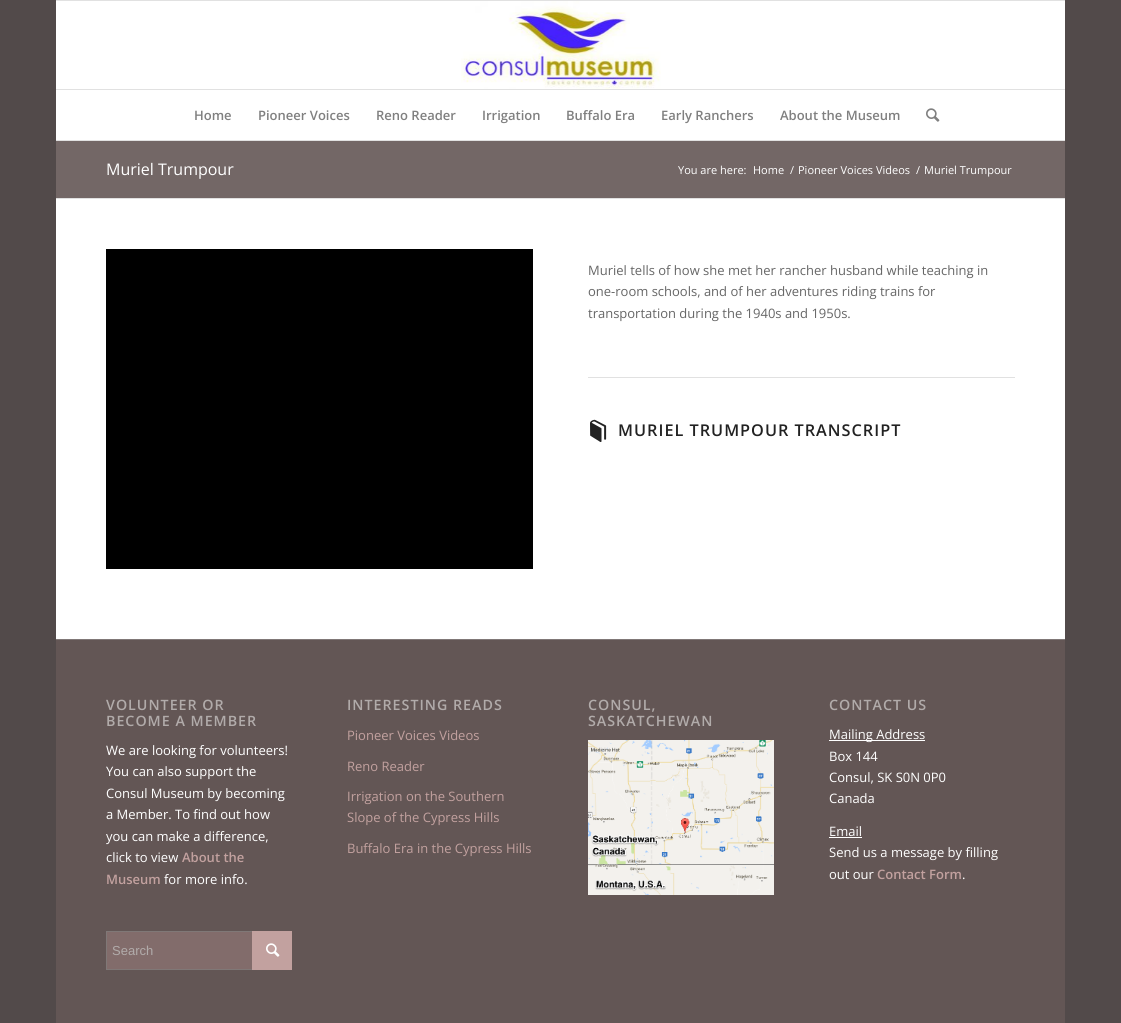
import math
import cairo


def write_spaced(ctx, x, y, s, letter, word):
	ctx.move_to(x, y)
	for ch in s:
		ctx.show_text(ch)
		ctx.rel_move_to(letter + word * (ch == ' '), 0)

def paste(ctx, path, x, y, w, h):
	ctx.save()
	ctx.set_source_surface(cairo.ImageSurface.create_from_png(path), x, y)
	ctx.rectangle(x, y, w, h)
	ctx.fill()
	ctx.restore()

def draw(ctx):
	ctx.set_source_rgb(0.322, 0.29, 0.29)
	ctx.paint()
	ctx.set_source_rgb(0.882, 0.882, 0.882)
	ctx.rectangle(56, 0, 1009, 1)
	ctx.rectangle(56, 140, 1009, 1)
	ctx.fill()
	ctx.set_source_rgb(1, 1, 1)
	ctx.rectangle(56, 1, 1009, 139)
	ctx.fill()
	paste(ctx, 'media/1.png', 461, 1, 200, 88)
	ctx.set_source_rgb(0.882, 0.882, 0.882)
	ctx.rectangle(56, 89, 1009, 1)
	ctx.fill()
	ctx.select_font_face('Open Sans SemiBold')
	ctx.set_font_size(13)
	ctx.set_source_rgb(0.502, 0.502, 0.502)
	for x, y, s in [
		(194, 120, 'Home'),
		(258, 120, 'Pioneer Voices'),
		(376, 120, 'Reno Reader'),
		(482, 120, 'Irrigation'),
		(566, 120, 'Buffalo Era'),
		(661, 120, 'Early Ranchers'),
		(780, 120, 'About the Museum'),
	]:
		ctx.move_to(x, y)
		ctx.show_text(s)
	paste(ctx, 'media/2.png', 926, 108, 14, 14)
	ctx.set_source_rgb(1, 1, 1)
	ctx.rectangle(56, 199, 1009, 440)
	ctx.fill()
	ctx.set_source_rgb(0.451, 0.404, 0.4)
	ctx.rectangle(56, 141, 1009, 57)
	ctx.fill()
	ctx.select_font_face('Open Sans')
	ctx.set_font_size(16)
	ctx.set_source_rgb(1, 1, 1)
	ctx.move_to(106, 175)
	ctx.show_text('Muriel Trumpour')
	ctx.set_font_size(11)
	for x, y, s in [
		(678, 174, 'You are here:'),
		(753, 174, 'Home'),
		(790, 174, '/'),
		(798, 174, 'Pioneer Voices Videos'),
		(916, 174, '/'),
		(924, 174, 'Muriel Trumpour'),
	]:
		ctx.move_to(x, y)
		ctx.show_text(s)
	ctx.set_source_rgb(0.882, 0.882, 0.882)
	ctx.rectangle(56, 198, 1009, 1)
	ctx.fill()
	ctx.set_source_rgb(0, 0, 0)
	ctx.rectangle(106, 249, 427, 320)
	ctx.fill()
	ctx.set_font_size(13)
	ctx.set_source_rgb(0.4, 0.4, 0.4)
	for x, y, s in [
		(588, 275, 'Muriel tells of how she met her rancher husband while teaching in'),
		(588, 296, 'one-room schools, and of her adventures riding trains for'),
		(588, 318, 'transportation during the 1940s and 1950s.'),
	]:
		ctx.move_to(x, y)
		ctx.show_text(s)
	ctx.set_source_rgb(0.882, 0.882, 0.882)
	ctx.rectangle(588, 377, 427, 1)
	ctx.fill()
	paste(ctx, 'media/3.png', 590, 419, 17, 23)
	ctx.select_font_face('Open Sans SemiBold')
	ctx.set_font_size(16.25)
	ctx.set_source_rgb(0.133, 0.133, 0.133)
	write_spaced(ctx, 618, 436, 'MURIEL TRUMPOUR TRANSCRIPT', 1, 0)
	ctx.set_source_rgb(0.388, 0.337, 0.333)
	ctx.rectangle(56, 640, 1009, 383)
	ctx.fill()
	ctx.set_source_rgb(0.502, 0.471, 0.467)
	ctx.rectangle(56, 639, 1009, 1)
	ctx.fill()
	ctx.set_font_size(14.25)
	ctx.set_source_rgb(0.694, 0.671, 0.667)
	write_spaced(ctx, 106, 710, 'VOLUNTEER OR', 1, 0)
	write_spaced(ctx, 106, 726, 'BECOME A MEMBER', 1, 0)
	ctx.select_font_face('Open Sans')
	ctx.set_font_size(13)
	ctx.set_source_rgb(1, 1, 1)
	for x, y, s in [
		(106, 755, 'We are looking for volunteers!'),
		(106, 776, 'You can also support the'),
		(106, 798, 'Consul Museum by becoming'),
		(106, 819, 'a Member. To find out how'),
		(106, 841, 'you can make a difference,'),
		(106, 862, 'click to view'),
	]:
		ctx.move_to(x, y)
		ctx.show_text(s)
	ctx.select_font_face('Open Sans SemiBold')
	ctx.set_source_rgb(0.761, 0.631, 0.624)
	ctx.move_to(182, 862)
	ctx.show_text('About the')
	ctx.move_to(106, 884)
	ctx.show_text('Museum')
	ctx.select_font_face('Open Sans')
	ctx.set_source_rgb(1, 1, 1)
	ctx.move_to(164, 884)
	ctx.show_text('for more info.')
	ctx.set_source_rgb(0.51, 0.424, 0.42)
	ctx.rectangle(107, 932, 145, 37)
	ctx.fill()
	ctx.rectangle(106.5, 931.5, 185, 38)
	ctx.set_source_rgb(0.502, 0.471, 0.467)
	ctx.set_line_width(1)
	ctx.stroke()
	ctx.select_font_face('Liberation Sans')
	ctx.set_source_rgb(0.694, 0.671, 0.667)
	ctx.move_to(112, 955)
	ctx.show_text('Search')
	ctx.set_source_rgb(0.761, 0.631, 0.624)
	ctx.rectangle(252, 931, 40, 39)
	ctx.fill()
	paste(ctx, 'media/4.png', 266, 943, 14, 14)
	ctx.select_font_face('Open Sans SemiBold')
	ctx.set_font_size(14.25)
	ctx.set_source_rgb(0.694, 0.671, 0.667)
	write_spaced(ctx, 347, 710, 'INTERESTING READS', 1, 0)
	ctx.select_font_face('Open Sans')
	ctx.set_font_size(13)
	ctx.set_source_rgb(0.761, 0.631, 0.624)
	for x, y, s in [
		(347, 740, 'Pioneer Voices Videos'),
		(347, 771, 'Reno Reader'),
		(347, 801, 'Irrigation on the Southern'),
		(347, 822, 'Slope of the Cypress Hills'),
		(347, 853, 'Buffalo Era in the Cypress Hills'),
	]:
		ctx.move_to(x, y)
		ctx.show_text(s)
	ctx.select_font_face('Open Sans SemiBold')
	ctx.set_font_size(14.25)
	ctx.set_source_rgb(0.694, 0.671, 0.667)
	write_spaced(ctx, 588, 710, 'CONSUL,', 1, 0)
	write_spaced(ctx, 588, 726, 'SASKATCHEWAN', 1, 0)
	paste(ctx, 'media/5.png', 588, 740, 186, 155)
	write_spaced(ctx, 829, 710, 'CONTACT US', 1, 0)
	ctx.set_source_rgb(1, 1, 1)
	ctx.rectangle(829, 740, 96, 1)
	ctx.fill()
	ctx.select_font_face('Open Sans')
	ctx.set_font_size(13)
	for x, y, s in [
		(829, 739, 'Mailing Address'),
		(829, 761, 'Box 144'),
		(829, 782, 'Consul, SK S0N 0P0'),
		(829, 803, 'Canada'),
		(829, 836, 'Email'),
	]:
		ctx.move_to(x, y)
		ctx.show_text(s)
	ctx.rectangle(829, 837, 33, 1)
	ctx.fill()
	ctx.move_to(829, 857)
	ctx.show_text('Send us a message by filling')
	ctx.move_to(829, 879)
	ctx.show_text('out our')
	ctx.select_font_face('Open Sans SemiBold')
	ctx.set_source_rgb(0.761, 0.631, 0.624)
	ctx.move_to(877, 879)
	ctx.show_text('Contact Form')
	ctx.select_font_face('Open Sans')
	ctx.set_source_rgb(1, 1, 1)
	ctx.move_to(962, 879)
	ctx.show_text('.')


surface = cairo.ImageSurface(cairo.FORMAT_RGB24, 1121, 1023)
ctx = cairo.Context(surface)
options = cairo.FontOptions()
options.set_hint_metrics(cairo.HINT_METRICS_OFF)
options.set_hint_style(cairo.HINT_STYLE_NONE)
ctx.set_font_options(options)
ctx.set_miter_limit(4)
draw(ctx)
surface.write_to_png('image.png')
